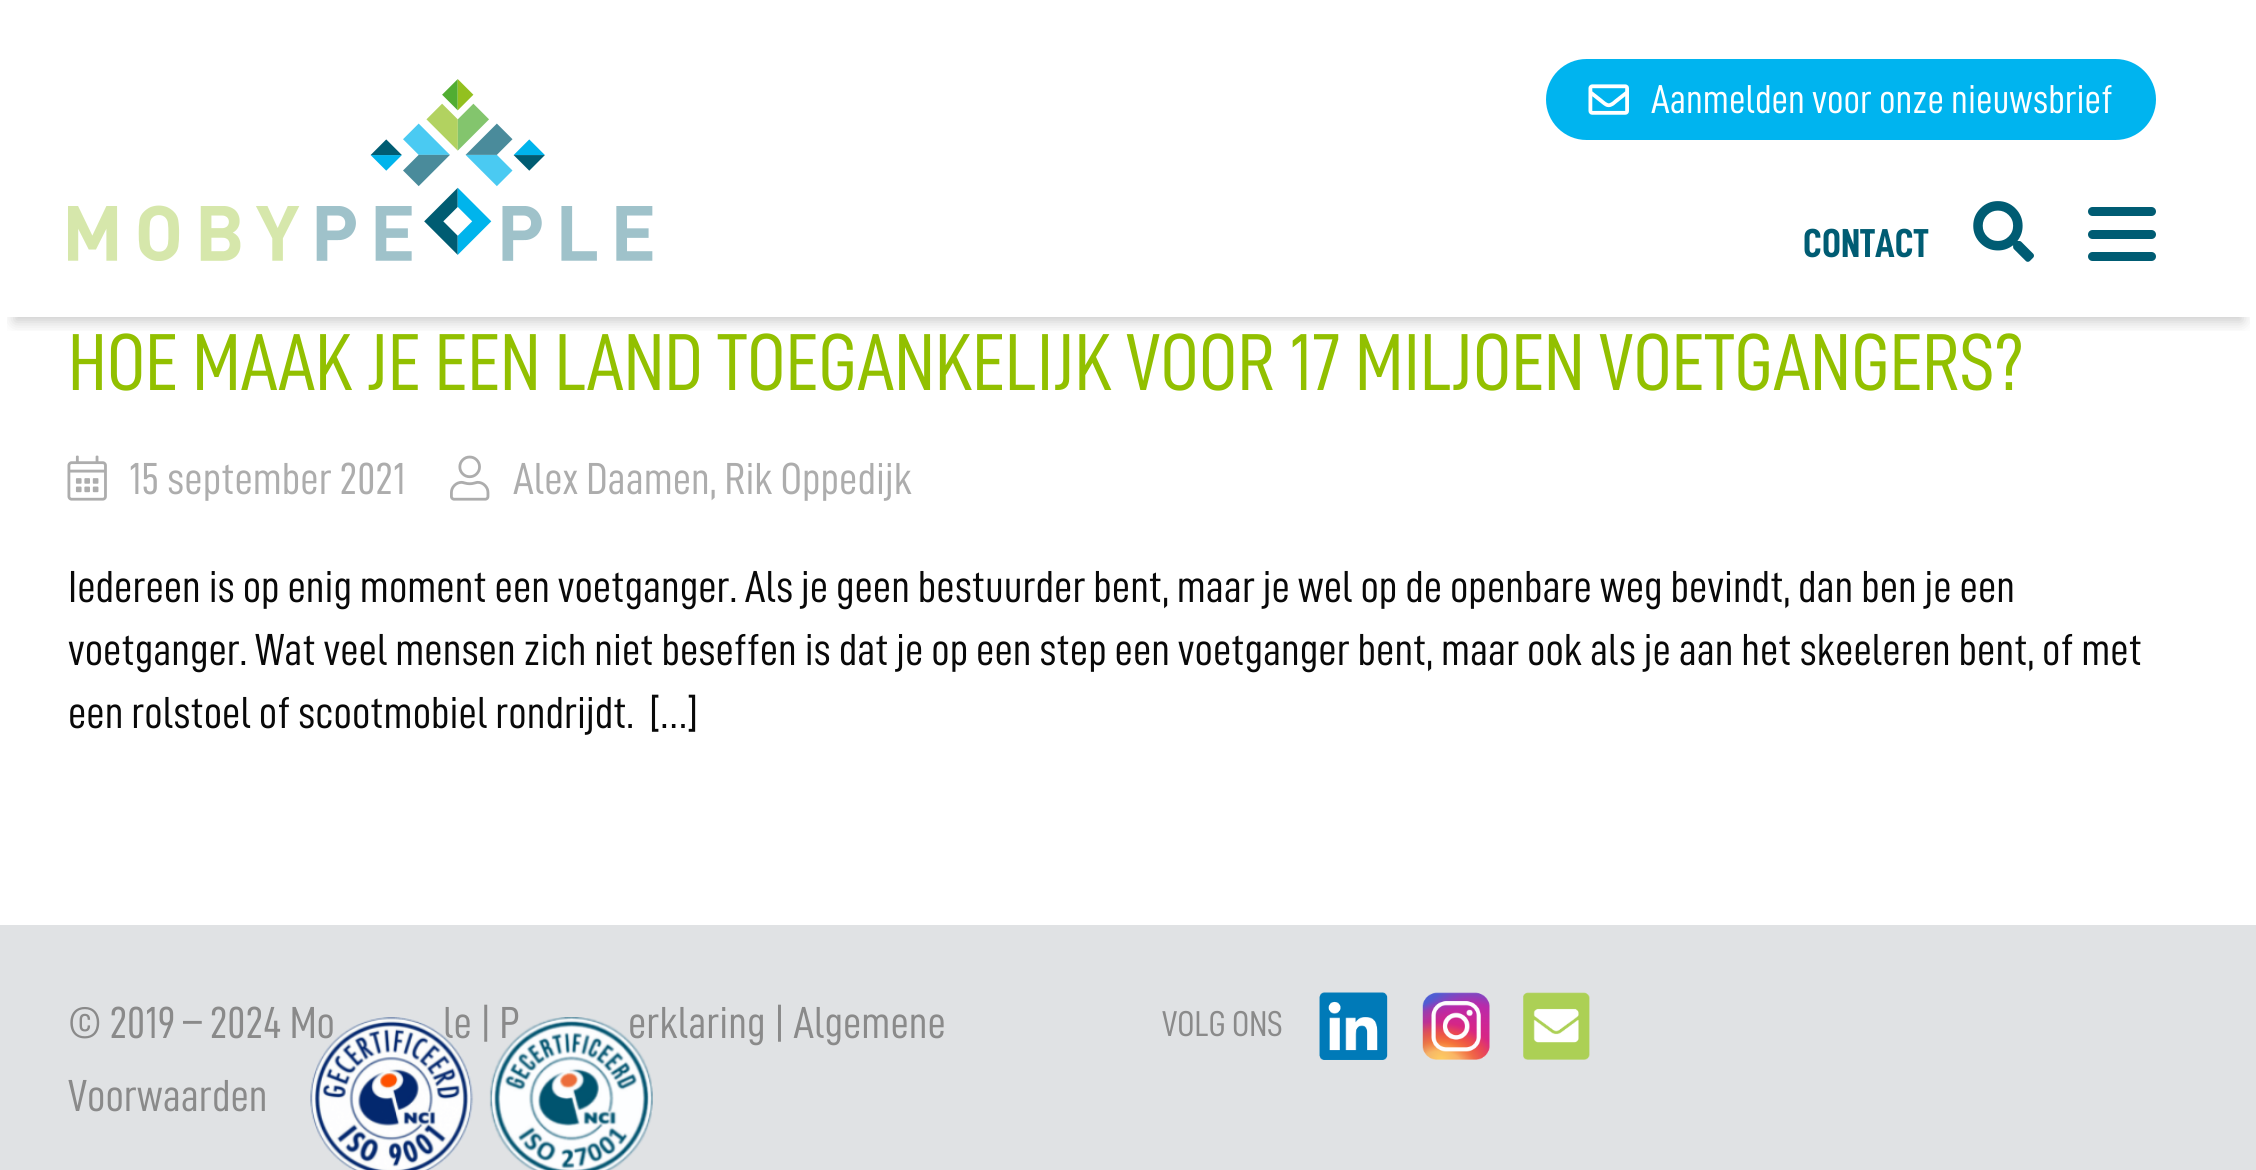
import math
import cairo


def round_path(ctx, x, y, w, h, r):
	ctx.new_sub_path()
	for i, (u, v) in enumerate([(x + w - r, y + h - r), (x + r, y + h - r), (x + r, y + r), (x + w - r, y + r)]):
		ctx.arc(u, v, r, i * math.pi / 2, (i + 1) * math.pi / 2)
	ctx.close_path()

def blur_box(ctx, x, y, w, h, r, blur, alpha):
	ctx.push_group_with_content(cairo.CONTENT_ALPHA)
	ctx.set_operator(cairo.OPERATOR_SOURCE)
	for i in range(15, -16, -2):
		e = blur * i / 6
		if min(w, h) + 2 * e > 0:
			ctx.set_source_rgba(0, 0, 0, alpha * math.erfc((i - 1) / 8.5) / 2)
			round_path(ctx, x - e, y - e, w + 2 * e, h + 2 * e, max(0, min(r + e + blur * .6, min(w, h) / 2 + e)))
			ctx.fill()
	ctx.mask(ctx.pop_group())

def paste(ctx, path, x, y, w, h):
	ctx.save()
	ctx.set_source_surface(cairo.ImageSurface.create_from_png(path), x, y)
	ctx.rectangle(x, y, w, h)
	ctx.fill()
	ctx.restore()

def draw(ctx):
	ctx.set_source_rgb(1, 1, 1)
	ctx.paint()
	ctx.save()
	ctx.rectangle(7, 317, 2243, 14)
	ctx.clip()
	ctx.set_source_rgb(0, 0, 0)
	blur_box(ctx, 14, 32, 2229, 290, 0, 7, 0.2)
	ctx.restore()
	paste(ctx, 'media/1.png', 68, 79, 585, 182)
	ctx.set_source_rgb(0, 0.706, 0.937)
	round_path(ctx, 1546, 59, 610, 81, 40.5)
	ctx.fill()
	paste(ctx, 'media/2.png', 1588, 84, 41, 31)
	ctx.select_font_face('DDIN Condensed')
	ctx.set_font_size(40.5)
	ctx.set_source_rgb(1, 1, 1)
	ctx.move_to(1651, 113)
	ctx.show_text('Aanmelden voor onze nieuwsbrief')
	ctx.select_font_face('DDIN Condensed', cairo.FONT_SLANT_NORMAL, cairo.FONT_WEIGHT_BOLD)
	ctx.set_source_rgb(0, 0.361, 0.451)
	ctx.move_to(1803, 257)
	ctx.show_text('CONTACT')
	paste(ctx, 'media/3.png', 1973, 201, 61, 61)
	round_path(ctx, 2088, 207, 68, 9, 4.5)
	ctx.fill()
	round_path(ctx, 2088, 230, 68, 9, 4.5)
	ctx.fill()
	round_path(ctx, 2088, 252, 68, 9, 4.5)
	ctx.fill()
	ctx.select_font_face('DDIN Condensed')
	ctx.set_font_size(81)
	ctx.set_source_rgb(0.573, 0.753, 0)
	ctx.move_to(68, 390)
	ctx.show_text('HOE MAAK JE EEN LAND TOEGANKELIJK VOOR 17 MILJOEN VOETGANGERS?')
	paste(ctx, 'media/4.png', 67, 455, 40, 46)
	ctx.set_font_size(45)
	ctx.set_source_rgb(0.678, 0.678, 0.678)
	ctx.move_to(129, 494)
	ctx.show_text('15 september 2021')
	paste(ctx, 'media/5.png', 450, 455, 40, 46)
	ctx.move_to(513, 494)
	ctx.show_text('Alex Daamen, Rik Oppedijk')
	ctx.set_source_rgb(0.039, 0.039, 0.039)
	for x, y, s in [
		(68, 602, 'Iedereen is op enig moment een voetganger. Als je geen bestuurder bent, maar je wel op de openbare weg bevindt, dan ben je een'),
		(68, 665, 'voetganger. Wat veel mensen zich niet beseffen is dat je op een step een voetganger bent, maar ook als je aan het skeeleren bent, of met'),
		(68, 728, 'een rolstoel of scootmobiel rondrijdt.  […]'),
	]:
		ctx.move_to(x, y)
		ctx.show_text(s)
	ctx.set_source_rgb(0.878, 0.886, 0.894)
	ctx.rectangle(0, 925, 2256, 245)
	ctx.fill()
	ctx.set_source_rgb(0.541, 0.541, 0.541)
	for x, y, s in [
		(68, 1038, '© 2019 – 2024 Mo'),
		(443, 1038, 'le | P'),
		(628, 1038, 'erklaring | Algemene'),
		(68, 1111, 'Voorwaarden'),
	]:
		ctx.move_to(x, y)
		ctx.show_text(s)
	paste(ctx, 'media/6.png', 310, 1017, 343, 153)
	ctx.set_font_size(36)
	ctx.move_to(1162, 1036)
	ctx.show_text('VOLG ONS')
	paste(ctx, 'media/7.png', 1319, 992, 69, 68)
	paste(ctx, 'media/8.png', 1422, 992, 68, 68)
	paste(ctx, 'media/9.png', 1523, 992, 67, 68)


surface = cairo.ImageSurface(cairo.FORMAT_RGB24, 2256, 1170)
ctx = cairo.Context(surface)
options = cairo.FontOptions()
options.set_hint_metrics(cairo.HINT_METRICS_OFF)
options.set_hint_style(cairo.HINT_STYLE_NONE)
ctx.set_font_options(options)
ctx.set_miter_limit(4)
draw(ctx)
surface.write_to_png('image.png')
